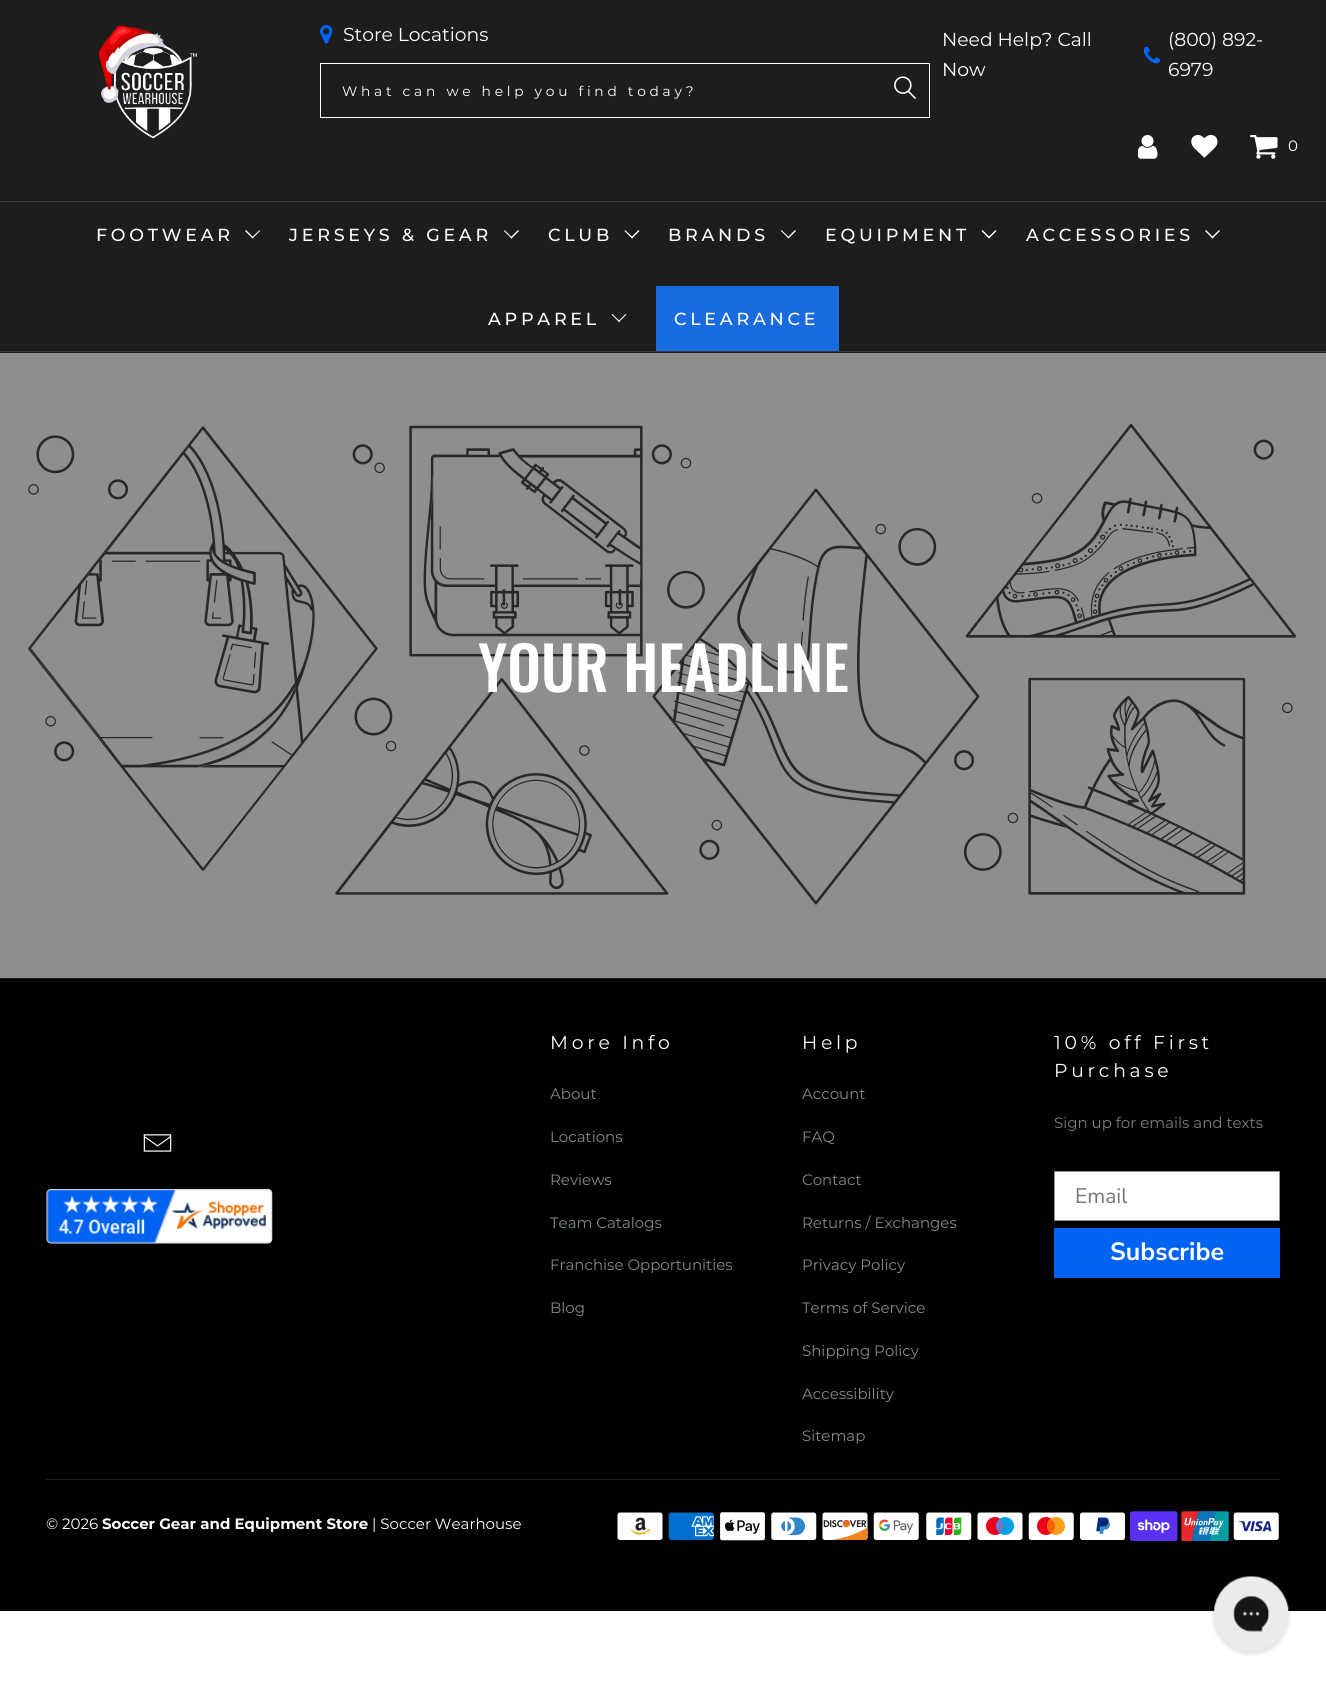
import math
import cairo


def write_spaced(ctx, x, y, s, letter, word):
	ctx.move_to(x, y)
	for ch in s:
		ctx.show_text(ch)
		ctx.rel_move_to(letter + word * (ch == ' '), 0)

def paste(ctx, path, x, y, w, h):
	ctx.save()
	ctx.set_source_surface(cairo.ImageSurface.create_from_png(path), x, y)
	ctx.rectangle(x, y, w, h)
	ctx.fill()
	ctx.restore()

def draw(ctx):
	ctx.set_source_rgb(1, 1, 1)
	ctx.paint()
	ctx.set_source_rgb(0.114, 0.114, 0.114)
	ctx.rectangle(0, 0, 1326, 201)
	ctx.fill()
	paste(ctx, 'media/1.png', 98, 25, 99, 114)
	paste(ctx, 'media/2.png', 320, 25, 13, 19)
	ctx.select_font_face('Montserrat')
	ctx.set_font_size(18.75)
	ctx.set_source_rgb(1, 1, 1)
	ctx.move_to(343, 41)
	ctx.show_text('Store Locations')
	ctx.rectangle(320.5, 63.5, 609, 54)
	ctx.set_line_width(1)
	ctx.stroke()
	ctx.set_font_size(13.75)
	write_spaced(ctx, 342, 96, 'What can we help you find today?', 3.75, 0)
	paste(ctx, 'media/3.png', 894, 76, 22, 23)
	ctx.set_font_size(18.75)
	for x, y, s in [
		(942, 46, 'Need Help? Call'),
		(942, 76, 'Now'),
		(1168, 46, '(800) 892-'),
	]:
		ctx.move_to(x, y)
		ctx.show_text(s)
	paste(ctx, 'media/4.png', 1144, 46, 16, 18)
	ctx.move_to(1168, 76)
	ctx.show_text('6979')
	paste(ctx, 'media/5.png', 1138, 135, 20, 24)
	paste(ctx, 'media/6.png', 1191, 135, 27, 23)
	paste(ctx, 'media/7.png', 1250, 135, 28, 24)
	ctx.set_font_size(15)
	write_spaced(ctx, 1288, 151, '0', 3.75, 0)
	ctx.set_source_rgb(0.114, 0.114, 0.114)
	ctx.rectangle(0, 202, 1326, 151)
	ctx.fill()
	ctx.set_source_rgb(0.227, 0.227, 0.227)
	ctx.rectangle(0, 201, 1326, 1)
	ctx.rectangle(0, 351, 1326, 1)
	ctx.fill()
	ctx.select_font_face('Montserrat Medium')
	ctx.set_font_size(17.5)
	ctx.set_source_rgb(1, 1, 1)
	write_spaced(ctx, 96, 241, 'FOOTWEAR', 3.75, 0)
	ctx.new_path()
	ctx.move_to(259.5, 230)
	ctx.line_to(260, 231)
	ctx.line_to(252.5, 238.5)
	ctx.line_to(252, 237.5)
	ctx.close_path()
	ctx.fill()
	ctx.new_path()
	ctx.move_to(246, 230)
	ctx.line_to(253.5, 237.5)
	ctx.line_to(252.5, 238.5)
	ctx.line_to(245, 231)
	ctx.close_path()
	ctx.fill()
	write_spaced(ctx, 289, 241, 'JERSEYS & GEAR', 3.75, 0)
	ctx.new_path()
	ctx.move_to(518, 230)
	ctx.line_to(519, 231)
	ctx.line_to(511.5, 238.5)
	ctx.line_to(510.5, 237.5)
	ctx.close_path()
	ctx.fill()
	ctx.new_path()
	ctx.move_to(504.5, 230)
	ctx.line_to(512, 237.5)
	ctx.line_to(511.5, 238.5)
	ctx.line_to(504, 231)
	ctx.close_path()
	ctx.fill()
	write_spaced(ctx, 548, 241, 'CLUB', 3.75, 0)
	ctx.new_path()
	ctx.move_to(638.5, 230)
	ctx.line_to(639.5, 231)
	ctx.line_to(632, 238.5)
	ctx.line_to(631, 237.5)
	ctx.close_path()
	ctx.fill()
	ctx.new_path()
	ctx.move_to(625, 230)
	ctx.line_to(633, 237.5)
	ctx.line_to(632, 238.5)
	ctx.line_to(624.5, 231)
	ctx.close_path()
	ctx.fill()
	write_spaced(ctx, 668, 241, 'BRANDS', 3.75, 0)
	ctx.new_path()
	ctx.move_to(795, 230)
	ctx.line_to(796, 231)
	ctx.line_to(788.5, 238.5)
	ctx.line_to(787.5, 237.5)
	ctx.close_path()
	ctx.fill()
	ctx.new_path()
	ctx.move_to(781.5, 230)
	ctx.line_to(789, 237.5)
	ctx.line_to(788.5, 238.5)
	ctx.line_to(781, 231)
	ctx.close_path()
	ctx.fill()
	write_spaced(ctx, 825, 241, 'EQUIPMENT', 3.75, 0)
	ctx.new_path()
	ctx.move_to(995.5, 230)
	ctx.line_to(996.5, 231)
	ctx.line_to(989, 238.5)
	ctx.line_to(988, 237.5)
	ctx.close_path()
	ctx.fill()
	ctx.new_path()
	ctx.move_to(982.5, 230)
	ctx.line_to(990, 237.5)
	ctx.line_to(989, 238.5)
	ctx.line_to(981.5, 231)
	ctx.close_path()
	ctx.fill()
	write_spaced(ctx, 1026, 241, 'ACCESSORIES', 3.75, 0)
	ctx.new_path()
	ctx.move_to(1219, 230)
	ctx.line_to(1220, 231)
	ctx.line_to(1212.5, 238.5)
	ctx.line_to(1211.5, 237.5)
	ctx.close_path()
	ctx.fill()
	ctx.new_path()
	ctx.move_to(1206, 230)
	ctx.line_to(1213.5, 237.5)
	ctx.line_to(1212.5, 238.5)
	ctx.line_to(1205, 231)
	ctx.close_path()
	ctx.fill()
	write_spaced(ctx, 488, 325, 'APPAREL', 3.75, 0)
	ctx.new_path()
	ctx.move_to(625.5, 314)
	ctx.line_to(626.5, 314.5)
	ctx.line_to(619, 322)
	ctx.line_to(618, 321.5)
	ctx.close_path()
	ctx.fill()
	ctx.new_path()
	ctx.move_to(612.5, 314)
	ctx.line_to(620, 321.5)
	ctx.line_to(619, 322)
	ctx.line_to(611.5, 314.5)
	ctx.close_path()
	ctx.fill()
	ctx.set_source_rgb(0.098, 0.42, 0.878)
	ctx.rectangle(656, 286, 183, 65)
	ctx.fill()
	ctx.set_source_rgb(1, 1, 1)
	write_spaced(ctx, 674, 325, 'CLEARANCE', 3.75, 0)
	ctx.set_source_rgb(0.557, 0.557, 0.557)
	ctx.rectangle(0, 353, 1326, 625)
	ctx.fill()
	paste(ctx, 'media/8.png', 28, 423, 1269, 482)
	ctx.select_font_face('Oswald Medium')
	ctx.set_font_size(60)
	ctx.set_source_rgb(1, 1, 1)
	ctx.move_to(478, 692)
	ctx.show_text('YOUR HEADLINE')
	ctx.set_source_rgb(0, 0, 0)
	ctx.rectangle(0, 979, 1326, 632)
	ctx.fill()
	ctx.set_source_rgb(0.106, 0.122, 0.137)
	ctx.rectangle(0, 978, 1326, 1)
	ctx.fill()
	paste(ctx, 'media/9.png', 143, 1134, 29, 18)
	paste(ctx, 'media/10.png', 46, 1188, 227, 56)
	ctx.select_font_face('Montserrat')
	ctx.set_font_size(18.75)
	ctx.set_source_rgb(1, 1, 1)
	write_spaced(ctx, 550, 1049, 'More Info', 3.75, 0)
	ctx.set_font_size(15)
	ctx.set_source_rgb(0.498, 0.549, 0.553)
	for x, y, s in [
		(550, 1099, 'About'),
		(550, 1142, 'Locations'),
		(550, 1185, 'Reviews'),
		(550, 1228, 'Team Catalogs'),
		(550, 1270, 'Franchise Opportunities'),
		(550, 1313, 'Blog'),
	]:
		ctx.move_to(x, y)
		ctx.show_text(s)
	ctx.set_font_size(18.75)
	ctx.set_source_rgb(1, 1, 1)
	write_spaced(ctx, 802, 1049, 'Help', 3.75, 0)
	ctx.set_font_size(15)
	ctx.set_source_rgb(0.498, 0.549, 0.553)
	for x, y, s in [
		(802, 1099, 'Account'),
		(802, 1142, 'FAQ'),
		(802, 1185, 'Contact'),
		(802, 1228, 'Returns / Exchanges'),
		(802, 1270, 'Privacy Policy'),
		(802, 1313, 'Terms of Service'),
		(802, 1356, 'Shipping Policy'),
		(802, 1399, 'Accessibility'),
		(802, 1441, 'Sitemap'),
	]:
		ctx.move_to(x, y)
		ctx.show_text(s)
	ctx.set_font_size(18.75)
	ctx.set_source_rgb(1, 1, 1)
	write_spaced(ctx, 1054, 1049, '10% off First', 3.75, 0)
	write_spaced(ctx, 1054, 1077, 'Purchase', 3.75, 0)
	ctx.set_font_size(15)
	ctx.set_source_rgb(0.494, 0.494, 0.494)
	ctx.move_to(1054, 1128)
	ctx.show_text('Sign up for emails and texts')
	ctx.set_source_rgb(1, 1, 1)
	ctx.rectangle(1054.5, 1171.5, 225, 49)
	ctx.fill_preserve()
	ctx.set_source_rgb(0.58, 0.584, 0.588)
	ctx.stroke()
	ctx.select_font_face('Nunito Sans')
	ctx.set_font_size(21)
	ctx.set_source_rgb(0.463, 0.463, 0.463)
	ctx.move_to(1075, 1203)
	ctx.show_text('Email')
	ctx.set_source_rgb(0, 0.388, 0.949)
	ctx.rectangle(1054, 1228, 226, 50)
	ctx.fill()
	ctx.select_font_face('Nunito Sans', cairo.FONT_SLANT_NORMAL, cairo.FONT_WEIGHT_BOLD)
	ctx.set_font_size(25)
	ctx.set_source_rgb(1, 1, 1)
	ctx.move_to(1110, 1260)
	ctx.show_text('Subscribe')
	ctx.set_source_rgb(0.106, 0.122, 0.137)
	ctx.rectangle(46, 1479, 1234, 1)
	ctx.fill()
	ctx.select_font_face('Montserrat')
	ctx.set_font_size(15)
	ctx.set_source_rgb(1, 1, 1)
	ctx.move_to(46, 1529)
	ctx.show_text('© 2026')
	ctx.select_font_face('Montserrat', cairo.FONT_SLANT_NORMAL, cairo.FONT_WEIGHT_BOLD)
	ctx.move_to(102, 1529)
	ctx.show_text('Soccer Gear and Equipment Store')
	ctx.select_font_face('Montserrat')
	ctx.move_to(372, 1529)
	ctx.show_text('| Soccer Wearhouse')
	paste(ctx, 'media/11.png', 617, 1512, 46, 28)
	paste(ctx, 'media/12.png', 668, 1512, 46, 28)
	paste(ctx, 'media/13.png', 720, 1512, 45, 29)
	paste(ctx, 'media/14.png', 771, 1512, 46, 28)
	paste(ctx, 'media/15.png', 822, 1512, 46, 28)
	paste(ctx, 'media/16.png', 873, 1512, 46, 28)
	paste(ctx, 'media/17.png', 926, 1512, 46, 28)
	paste(ctx, 'media/18.png', 977, 1512, 46, 28)
	paste(ctx, 'media/19.png', 1028, 1512, 46, 28)
	paste(ctx, 'media/20.png', 1080, 1512, 45, 28)
	paste(ctx, 'media/21.png', 1130, 1511, 48, 30)
	paste(ctx, 'media/22.png', 1181, 1511, 48, 30)
	paste(ctx, 'media/23.png', 1233, 1512, 46, 28)
	paste(ctx, 'media/24.png', 1211, 1575, 80, 81)


surface = cairo.ImageSurface(cairo.FORMAT_RGB24, 1326, 1685)
ctx = cairo.Context(surface)
options = cairo.FontOptions()
options.set_hint_metrics(cairo.HINT_METRICS_OFF)
options.set_hint_style(cairo.HINT_STYLE_NONE)
ctx.set_font_options(options)
ctx.set_miter_limit(4)
draw(ctx)
surface.write_to_png('image.png')
